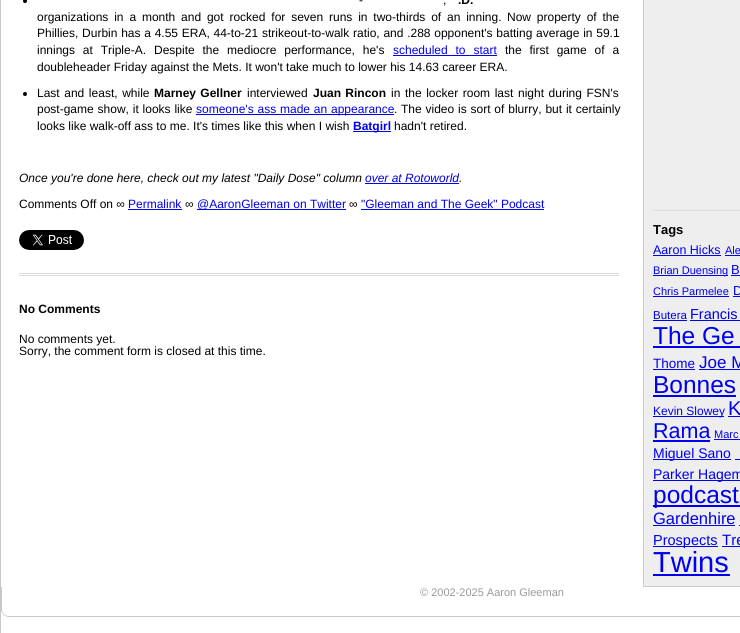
import math
import cairo


def write_spaced(ctx, x, y, s, letter, word):
	ctx.move_to(x, y)
	for ch in s:
		ctx.show_text(ch)
		ctx.rel_move_to(letter + word * (ch == ' '), 0)

def paste(ctx, path, x, y, w, h):
	ctx.save()
	ctx.set_source_surface(cairo.ImageSurface.create_from_png(path), x, y)
	ctx.rectangle(x, y, w, h)
	ctx.fill()
	ctx.restore()

def draw(ctx):
	ctx.set_source_rgb(1, 1, 1)
	ctx.paint()
	ctx.set_source_rgb(0.784, 0.784, 0.784)
	ctx.rectangle(0, 0, 1, 633)
	ctx.fill()
	ctx.set_source_rgb(0.867, 0.867, 0.867)
	ctx.rectangle(19, 273, 600, 1)
	ctx.rectangle(19, 275, 600, 1)
	ctx.fill()
	ctx.set_source_rgb(0, 0, 0)
	ctx.arc(25, 1, 2, 0, 2 * math.pi)
	ctx.fill()
	ctx.select_font_face('Liberation Sans')
	ctx.set_font_size(12)
	write_spaced(ctx, 359, 4, '-', 0, 2)
	write_spaced(ctx, 443, 4, ',', 0, 2)
	ctx.select_font_face('Liberation Sans', cairo.FONT_SLANT_NORMAL, cairo.FONT_WEIGHT_BOLD)
	write_spaced(ctx, 458, 4, '.D.', 0, 2)
	ctx.select_font_face('Liberation Sans')
	write_spaced(ctx, 37, 21, 'organizations in a month and got rocked for seven runs in two-thirds of an inning.', 0, 2.5)
	write_spaced(ctx, 507, 21, 'Now property of the', 0, 2.5)
	write_spaced(ctx, 37, 37, 'Phillies, Durbin has a 4.55 ERA, 44-to-21 strikeout-to-walk ratio, and .288 opponent\'s batting average in 59.1', 0, 0.4)
	write_spaced(ctx, 37, 54, 'innings at Triple-A.', 0, 4.5)
	write_spaced(ctx, 154, 54, 'Despite the mediocre performance, he\'s', 0, 4.5)
	ctx.set_source_rgb(0, 0, 0.933)
	write_spaced(ctx, 393, 54, 'scheduled to start', 0, 4.5)
	ctx.rectangle(393, 55, 104, 1)
	ctx.fill()
	ctx.set_source_rgb(0, 0, 0)
	write_spaced(ctx, 505, 54, 'the first game of a', 0, 4.5)
	ctx.move_to(37, 71)
	ctx.show_text('doubleheader Friday against the Mets. It won\'t take much to lower his 14.63 career ERA.')
	ctx.new_path()
	ctx.arc(25, 94, 2, 0, 2 * math.pi)
	ctx.fill()
	write_spaced(ctx, 37, 97, 'Last and least, while', 0, 1.25)
	ctx.select_font_face('Liberation Sans', cairo.FONT_SLANT_NORMAL, cairo.FONT_WEIGHT_BOLD)
	write_spaced(ctx, 154, 97, 'Marney Gellner', 0, 1)
	ctx.select_font_face('Liberation Sans')
	ctx.move_to(247, 97)
	ctx.show_text('interviewed')
	ctx.select_font_face('Liberation Sans', cairo.FONT_SLANT_NORMAL, cairo.FONT_WEIGHT_BOLD)
	write_spaced(ctx, 313, 97, 'Juan Rincon', 0, 1)
	ctx.select_font_face('Liberation Sans')
	write_spaced(ctx, 391, 97, 'in the locker room last night during FSN\'s', 0, 1.25)
	write_spaced(ctx, 37, 113, 'post-game show, it looks like', 0, 0.5)
	ctx.set_source_rgb(0, 0, 0.933)
	ctx.rectangle(196, 114, 198, 1)
	ctx.fill()
	write_spaced(ctx, 196, 113, 'someone\'s ass made an appearance', 0, 0.5)
	ctx.set_source_rgb(0, 0, 0)
	ctx.move_to(394, 113)
	ctx.show_text('.')
	write_spaced(ctx, 401, 113, 'The video is sort of blurry, but it certainly', 0, 0.5)
	ctx.move_to(37, 130)
	ctx.show_text('looks like walk-off ass to me. It\'s times like this when I wish')
	ctx.set_source_rgb(0, 0, 0.933)
	ctx.rectangle(353, 131, 38, 1)
	ctx.fill()
	ctx.select_font_face('Liberation Sans', cairo.FONT_SLANT_NORMAL, cairo.FONT_WEIGHT_BOLD)
	ctx.move_to(353, 130)
	ctx.show_text('Batgirl')
	ctx.select_font_face('Liberation Sans')
	ctx.set_source_rgb(0, 0, 0)
	ctx.move_to(394, 130)
	ctx.show_text('hadn\'t retired.')
	ctx.select_font_face('Liberation Sans', cairo.FONT_SLANT_ITALIC)
	ctx.move_to(19, 182)
	ctx.show_text('Once you\'re done here, check out my latest "Daily Dose" column')
	ctx.set_source_rgb(0, 0, 0.933)
	ctx.move_to(365, 182)
	ctx.show_text('over at Rotoworld')
	ctx.set_source_rgb(0, 0, 0)
	ctx.move_to(459, 182)
	ctx.show_text('.')
	ctx.set_source_rgb(0, 0, 0.933)
	ctx.rectangle(365, 183, 94, 1)
	ctx.fill()
	ctx.select_font_face('Liberation Sans')
	ctx.set_source_rgb(0, 0, 0)
	ctx.move_to(19, 208)
	ctx.show_text('Comments Off on ∞')
	ctx.set_source_rgb(0, 0, 0.933)
	ctx.move_to(128, 208)
	ctx.show_text('Permalink')
	ctx.rectangle(128, 209, 54, 1)
	ctx.fill()
	ctx.set_source_rgb(0, 0, 0)
	ctx.move_to(185, 208)
	ctx.show_text('∞')
	ctx.set_source_rgb(0, 0, 0.933)
	ctx.rectangle(197, 209, 149, 1)
	ctx.fill()
	ctx.move_to(197, 208)
	ctx.show_text('@AaronGleeman on Twitter')
	ctx.set_source_rgb(0, 0, 0)
	ctx.move_to(349, 208)
	ctx.show_text('∞')
	ctx.set_source_rgb(0, 0, 0.933)
	ctx.move_to(361, 208)
	ctx.show_text('"Gleeman and The Geek" Podcast')
	ctx.rectangle(361, 209, 183, 1)
	ctx.fill()
	paste(ctx, 'media/1.png', 19, 230, 65, 20)
	ctx.select_font_face('Liberation Sans', cairo.FONT_SLANT_NORMAL, cairo.FONT_WEIGHT_BOLD)
	ctx.set_source_rgb(0, 0, 0)
	ctx.move_to(19, 313)
	ctx.show_text('No Comments')
	ctx.select_font_face('Liberation Sans')
	ctx.move_to(19, 343)
	ctx.show_text('No comments yet.')
	ctx.move_to(19, 355)
	ctx.show_text('Sorry, the comment form is closed at this time.')
	ctx.set_source_rgb(0.933, 0.933, 0.933)
	ctx.rectangle(643.5, -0.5, 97, 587)
	ctx.fill_preserve()
	ctx.set_source_rgb(0.8, 0.8, 0.8)
	ctx.set_line_width(1)
	ctx.stroke()
	ctx.set_source_rgb(0.867, 0.867, 0.867)
	ctx.rectangle(653, 210, 87, 1)
	ctx.fill()
	ctx.select_font_face('Liberation Sans', cairo.FONT_SLANT_NORMAL, cairo.FONT_WEIGHT_BOLD)
	ctx.set_font_size(13)
	ctx.set_source_rgb(0, 0, 0)
	ctx.move_to(653, 234)
	ctx.show_text('Tags')
	ctx.select_font_face('Liberation Sans')
	ctx.set_font_size(12.5)
	ctx.set_source_rgb(0, 0, 0.933)
	ctx.move_to(653, 254)
	ctx.show_text('Aaron Hicks')
	ctx.rectangle(653, 255, 68, 1)
	ctx.fill()
	ctx.set_font_size(11)
	ctx.move_to(725, 254)
	ctx.show_text('Ale')
	ctx.rectangle(725, 255, 15, 1)
	ctx.fill()
	ctx.rectangle(653, 275, 75, 1)
	ctx.fill()
	ctx.move_to(653, 274)
	ctx.show_text('Brian Duensing')
	ctx.set_font_size(13)
	ctx.move_to(731, 274)
	ctx.show_text('B')
	ctx.rectangle(731, 275, 9, 1)
	ctx.fill()
	ctx.set_font_size(11)
	ctx.move_to(653, 295)
	ctx.show_text('Chris Parmelee')
	ctx.rectangle(653, 296, 76, 1)
	ctx.fill()
	ctx.set_font_size(13)
	ctx.move_to(733, 295)
	ctx.show_text('D')
	ctx.rectangle(733, 296, 7, 1)
	ctx.fill()
	ctx.set_font_size(11.5)
	ctx.move_to(653, 319)
	ctx.show_text('Butera')
	ctx.rectangle(653, 320, 34, 1)
	ctx.fill()
	ctx.set_font_size(14.5)
	ctx.move_to(690, 319)
	ctx.show_text('Francis')
	ctx.rectangle(690, 320, 50, 1)
	ctx.fill()
	ctx.set_font_size(24.5)
	ctx.move_to(653, 344)
	ctx.show_text('The Ge')
	ctx.rectangle(653, 346, 87, 2)
	ctx.fill()
	ctx.set_font_size(13.5)
	ctx.move_to(653, 368)
	ctx.show_text('Thome')
	ctx.rectangle(653, 369, 42, 1)
	ctx.fill()
	ctx.set_font_size(17)
	ctx.move_to(699, 368)
	ctx.show_text('Joe M')
	ctx.rectangle(699, 369, 41, 1)
	ctx.fill()
	ctx.set_font_size(24.5)
	ctx.move_to(653, 393)
	ctx.show_text('Bonnes')
	ctx.rectangle(653, 395, 83, 2)
	ctx.fill()
	ctx.rectangle(653, 416, 71, 1)
	ctx.fill()
	ctx.set_font_size(12)
	ctx.move_to(653, 415)
	ctx.show_text('Kevin Slowey')
	ctx.set_font_size(20)
	ctx.move_to(728, 415)
	ctx.show_text('K')
	ctx.rectangle(728, 416, 12, 1)
	ctx.fill()
	ctx.set_font_size(21.5)
	ctx.move_to(653, 438)
	ctx.show_text('Rama')
	ctx.rectangle(653, 440, 57, 2)
	ctx.fill()
	ctx.set_font_size(11)
	ctx.move_to(714, 438)
	ctx.show_text('Marc')
	ctx.rectangle(714, 439, 26, 1)
	ctx.fill()
	ctx.rectangle(653, 459, 78, 1)
	ctx.fill()
	ctx.set_font_size(14)
	ctx.move_to(653, 458)
	ctx.show_text('Miguel Sano')
	ctx.rectangle(735, 459, 5, 1)
	ctx.fill()
	ctx.rectangle(653, 480, 87, 1)
	ctx.fill()
	ctx.move_to(653, 479)
	ctx.show_text('Parker Hagem')
	ctx.rectangle(653, 505, 87, 2)
	ctx.fill()
	ctx.set_font_size(24.5)
	ctx.move_to(653, 503)
	ctx.show_text('podcast')
	ctx.set_font_size(16.5)
	ctx.move_to(653, 524)
	ctx.show_text('Gardenhire')
	ctx.rectangle(653, 525, 82, 1)
	ctx.rectangle(739, 525, 1, 1)
	ctx.rectangle(653, 546, 65, 1)
	ctx.fill()
	ctx.set_font_size(14.5)
	ctx.move_to(653, 545)
	ctx.show_text('Prospects')
	ctx.set_font_size(15)
	ctx.move_to(722, 545)
	ctx.show_text('Tre')
	ctx.rectangle(722, 546, 18, 1)
	ctx.fill()
	ctx.set_font_size(29)
	ctx.move_to(653, 572)
	ctx.show_text('Twins')
	ctx.rectangle(653, 574, 77, 2)
	ctx.fill()
	ctx.set_source_rgb(0.784, 0.784, 0.784)
	ctx.set_fill_rule(cairo.FILL_RULE_EVEN_ODD)
	ctx.new_path()
	ctx.move_to(1, 587)
	ctx.line_to(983, 587)
	ctx.line_to(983, 609)
	ctx.curve_to(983, 613, 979, 617, 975, 617)
	ctx.line_to(9, 617)
	ctx.curve_to(5, 617, 1, 613, 1, 609)
	ctx.close_path()
	ctx.move_to(2, 587)
	ctx.line_to(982, 587)
	ctx.line_to(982, 609)
	ctx.curve_to(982, 613, 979, 616, 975, 616)
	ctx.line_to(9, 616)
	ctx.curve_to(5, 616, 2, 613, 2, 609)
	ctx.close_path()
	ctx.fill()
	ctx.set_font_size(11)
	ctx.set_source_rgb(0.6, 0.6, 0.6)
	ctx.move_to(420, 596)
	ctx.show_text('© 2002-2025 Aaron Gleeman')


surface = cairo.ImageSurface(cairo.FORMAT_RGB24, 740, 633)
ctx = cairo.Context(surface)
options = cairo.FontOptions()
options.set_hint_metrics(cairo.HINT_METRICS_OFF)
options.set_hint_style(cairo.HINT_STYLE_NONE)
ctx.set_font_options(options)
ctx.set_miter_limit(4)
draw(ctx)
surface.write_to_png('image.png')
